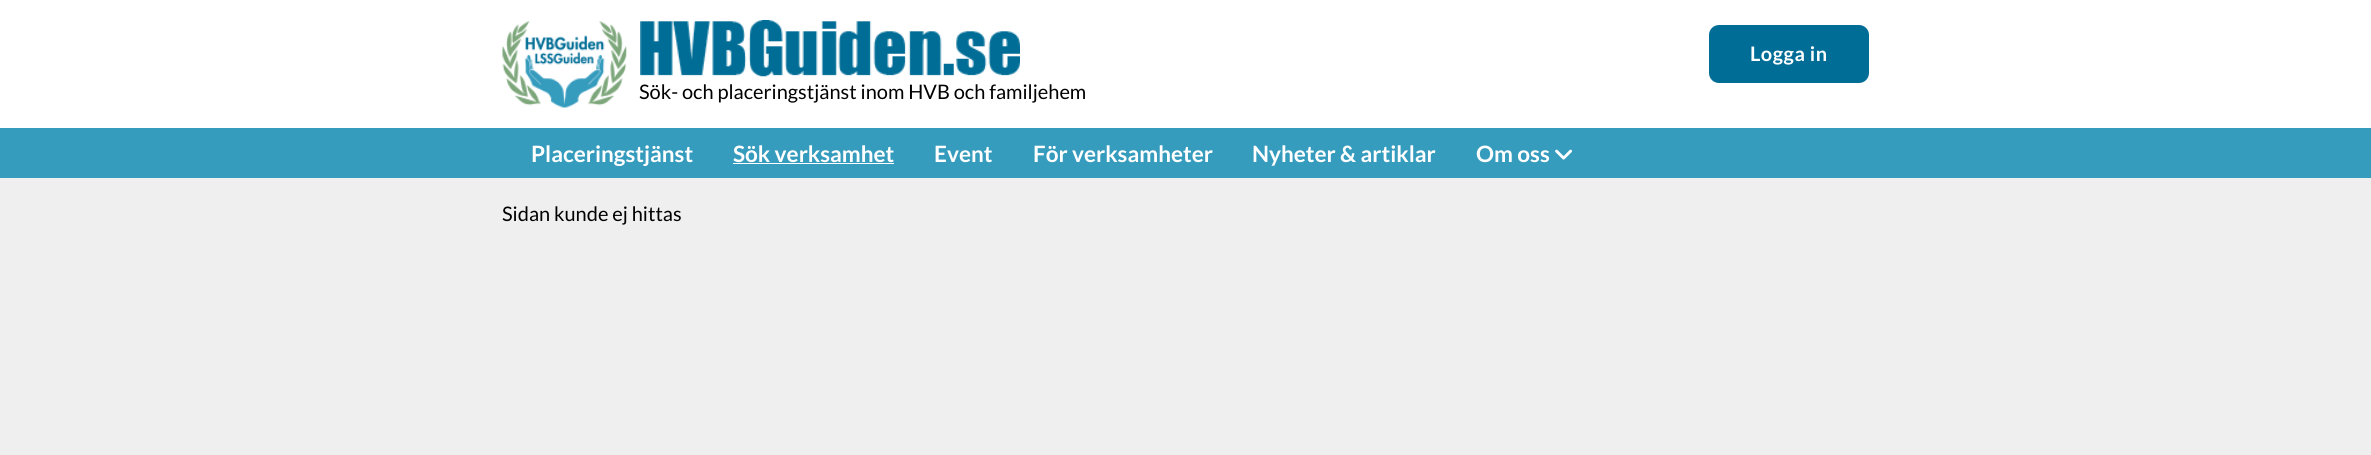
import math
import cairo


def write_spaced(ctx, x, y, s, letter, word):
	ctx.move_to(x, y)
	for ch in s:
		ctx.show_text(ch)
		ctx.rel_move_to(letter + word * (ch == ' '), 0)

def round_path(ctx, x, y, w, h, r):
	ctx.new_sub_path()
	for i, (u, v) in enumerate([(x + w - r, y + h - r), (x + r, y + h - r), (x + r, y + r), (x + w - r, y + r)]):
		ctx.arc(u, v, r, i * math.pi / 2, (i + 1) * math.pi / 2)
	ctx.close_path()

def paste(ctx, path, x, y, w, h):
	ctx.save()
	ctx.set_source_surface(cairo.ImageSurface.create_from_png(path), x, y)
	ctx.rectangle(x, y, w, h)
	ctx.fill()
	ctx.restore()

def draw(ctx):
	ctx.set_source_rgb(0.937, 0.937, 0.937)
	ctx.paint()
	ctx.set_source_rgb(1, 1, 1)
	ctx.rectangle(0, 0, 2371, 128)
	ctx.fill()
	ctx.set_source_rgb(0, 0.427, 0.588)
	round_path(ctx, 1709, 25, 160, 58, 10)
	ctx.fill()
	ctx.select_font_face('Lato', cairo.FONT_SLANT_NORMAL, cairo.FONT_WEIGHT_BOLD)
	ctx.set_font_size(20)
	ctx.set_source_rgb(1, 1, 1)
	write_spaced(ctx, 1750, 61, 'Logga in', 0.5, 0)
	paste(ctx, 'media/1.png', 502, 21, 125, 87)
	paste(ctx, 'media/2.png', 640, 20, 380, 57)
	ctx.select_font_face('Lato')
	ctx.set_source_rgb(0, 0, 0)
	ctx.move_to(639, 99)
	ctx.show_text('Sök- och placeringstjänst inom HVB och familjehem')
	ctx.set_source_rgb(0.212, 0.612, 0.745)
	ctx.rectangle(0, 128, 2371, 50)
	ctx.fill()
	ctx.select_font_face('Lato', cairo.FONT_SLANT_NORMAL, cairo.FONT_WEIGHT_BOLD)
	ctx.set_font_size(22.5)
	ctx.set_source_rgb(1, 1, 1)
	ctx.move_to(531, 162)
	ctx.show_text('Placeringstjänst')
	ctx.move_to(733, 162)
	ctx.show_text('Sök verksamhet')
	ctx.rectangle(733, 163, 161, 1)
	ctx.fill()
	for x, y, s in [
		(934, 162, 'Event'),
		(1033, 162, 'För verksamheter'),
		(1252, 162, 'Nyheter & artiklar'),
		(1476, 162, 'Om oss'),
	]:
		ctx.move_to(x, y)
		ctx.show_text(s)
	paste(ctx, 'media/3.png', 1555, 149, 17, 11)
	ctx.select_font_face('Lato')
	ctx.set_font_size(20)
	ctx.set_source_rgb(0, 0, 0)
	ctx.move_to(502, 221)
	ctx.show_text('Sidan kunde ej hittas')


surface = cairo.ImageSurface(cairo.FORMAT_RGB24, 2371, 455)
ctx = cairo.Context(surface)
options = cairo.FontOptions()
options.set_hint_metrics(cairo.HINT_METRICS_OFF)
options.set_hint_style(cairo.HINT_STYLE_NONE)
ctx.set_font_options(options)
ctx.set_miter_limit(4)
draw(ctx)
surface.write_to_png('image.png')
